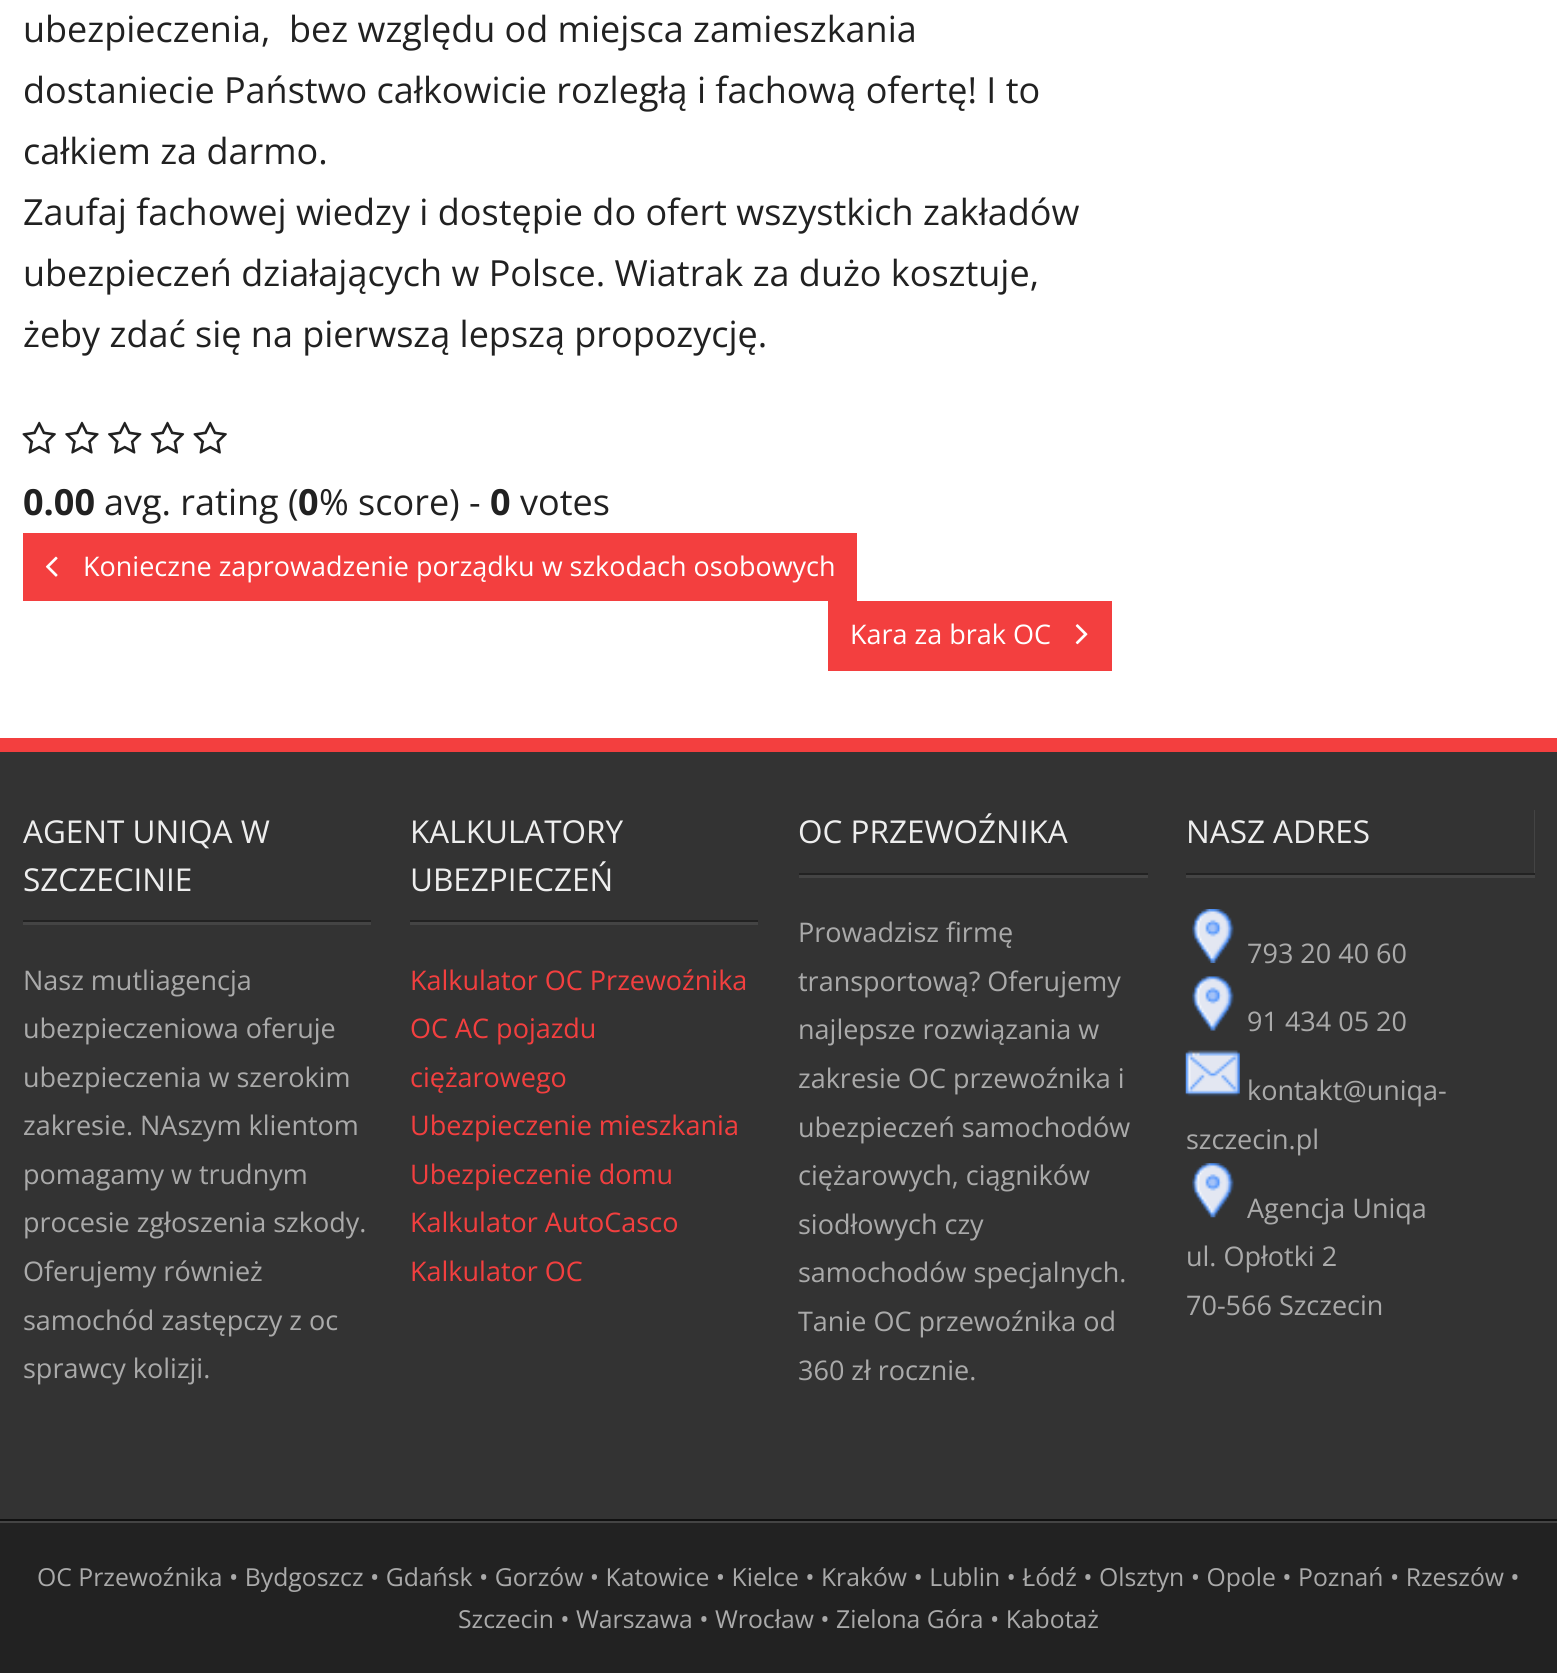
import math
import cairo


def paste(ctx, path, x, y, w, h):
	ctx.save()
	ctx.set_source_surface(cairo.ImageSurface.create_from_png(path), x, y)
	ctx.rectangle(x, y, w, h)
	ctx.fill()
	ctx.restore()

def draw(ctx):
	ctx.set_source_rgb(1, 1, 1)
	ctx.paint()
	ctx.select_font_face('Open Sans')
	ctx.set_font_size(36)
	ctx.set_source_rgb(0.129, 0.129, 0.129)
	for x, y, s in [
		(23, 42, 'ubezpieczenia,  bez względu od miejsca zamieszkania'),
		(23, 103, 'dostaniecie Państwo całkowicie rozległą i fachową ofertę! I to'),
		(23, 164, 'całkiem za darmo.'),
		(23, 225, 'Zaufaj fachowej wiedzy i dostępie do ofert wszystkich zakładów'),
		(23, 286, 'ubezpieczeń działających w Polsce. Wiatrak za dużo kosztuje,'),
		(23, 347, 'żeby zdać się na pierwszą lepszą propozycję.'),
	]:
		ctx.move_to(x, y)
		ctx.show_text(s)
	paste(ctx, 'media/1.png', 22, 421, 34, 33)
	paste(ctx, 'media/2.png', 65, 421, 34, 33)
	paste(ctx, 'media/3.png', 108, 421, 34, 33)
	paste(ctx, 'media/4.png', 150, 421, 35, 33)
	paste(ctx, 'media/1.png', 193, 421, 34, 33)
	ctx.select_font_face('Open Sans', cairo.FONT_SLANT_NORMAL, cairo.FONT_WEIGHT_BOLD)
	ctx.move_to(23, 515)
	ctx.show_text('0.00')
	ctx.select_font_face('Open Sans')
	ctx.move_to(104, 515)
	ctx.show_text('avg. rating (')
	ctx.select_font_face('Open Sans', cairo.FONT_SLANT_NORMAL, cairo.FONT_WEIGHT_BOLD)
	ctx.move_to(298, 515)
	ctx.show_text('0')
	ctx.select_font_face('Open Sans')
	ctx.move_to(319, 515)
	ctx.show_text('% score) -')
	ctx.select_font_face('Open Sans', cairo.FONT_SLANT_NORMAL, cairo.FONT_WEIGHT_BOLD)
	ctx.move_to(490, 515)
	ctx.show_text('0')
	ctx.select_font_face('Open Sans')
	ctx.move_to(520, 515)
	ctx.show_text('votes')
	ctx.set_source_rgb(0.953, 0.247, 0.247)
	ctx.rectangle(23, 533, 834, 68)
	ctx.fill()
	paste(ctx, 'media/5.png', 45, 556, 13, 21)
	ctx.set_font_size(27)
	ctx.set_source_rgb(1, 1, 1)
	ctx.move_to(83, 576)
	ctx.show_text('Konieczne zaprowadzenie porządku w szkodach osobowych')
	ctx.set_source_rgb(0.953, 0.247, 0.247)
	ctx.rectangle(828, 601, 284, 70)
	ctx.fill()
	ctx.set_source_rgb(1, 1, 1)
	ctx.move_to(850, 644)
	ctx.show_text('Kara za brak OC')
	paste(ctx, 'media/6.png', 1075, 624, 13, 21)
	ctx.set_source_rgb(0.2, 0.2, 0.2)
	ctx.rectangle(0, 752, 1557, 767)
	ctx.fill()
	ctx.set_source_rgb(0.953, 0.247, 0.247)
	ctx.rectangle(0, 738, 1557, 14)
	ctx.fill()
	ctx.set_source_rgb(0.067, 0.067, 0.067)
	ctx.rectangle(0, 1519, 1557, 2)
	ctx.fill()
	ctx.set_source_rgb(0.267, 0.267, 0.267)
	ctx.rectangle(23, 922, 348, 3)
	ctx.fill()
	ctx.set_source_rgb(0.133, 0.133, 0.133)
	ctx.rectangle(23, 920, 348, 2)
	ctx.fill()
	ctx.set_font_size(31.5)
	ctx.set_source_rgb(0.933, 0.933, 0.933)
	ctx.move_to(23, 843)
	ctx.show_text('AGENT UNIQA W')
	ctx.move_to(23, 891)
	ctx.show_text('SZCZECINIE')
	ctx.set_font_size(27)
	ctx.set_source_rgb(0.667, 0.667, 0.667)
	for x, y, s in [
		(23, 990, 'Nasz mutliagencja'),
		(23, 1038, 'ubezpieczeniowa oferuje'),
		(23, 1087, 'ubezpieczenia w szerokim'),
		(23, 1135, 'zakresie. NAszym klientom'),
		(23, 1184, 'pomagamy w trudnym'),
		(23, 1232, 'procesie zgłoszenia szkody.'),
		(23, 1281, 'Oferujemy również'),
		(23, 1330, 'samochód zastępczy z oc'),
		(23, 1378, 'sprawcy kolizji.'),
	]:
		ctx.move_to(x, y)
		ctx.show_text(s)
	ctx.set_source_rgb(0.267, 0.267, 0.267)
	ctx.rectangle(410, 922, 348, 3)
	ctx.fill()
	ctx.set_source_rgb(0.133, 0.133, 0.133)
	ctx.rectangle(410, 920, 348, 2)
	ctx.fill()
	ctx.set_font_size(31.5)
	ctx.set_source_rgb(0.933, 0.933, 0.933)
	ctx.move_to(410, 843)
	ctx.show_text('KALKULATORY')
	ctx.move_to(410, 891)
	ctx.show_text('UBEZPIECZEŃ')
	ctx.set_font_size(27)
	ctx.set_source_rgb(0.953, 0.247, 0.247)
	for x, y, s in [
		(410, 990, 'Kalkulator OC Przewoźnika'),
		(410, 1038, 'OC AC pojazdu'),
		(410, 1087, 'ciężarowego'),
		(410, 1135, 'Ubezpieczenie mieszkania'),
		(410, 1184, 'Ubezpieczenie domu'),
		(410, 1232, 'Kalkulator AutoCasco'),
		(410, 1281, 'Kalkulator OC'),
	]:
		ctx.move_to(x, y)
		ctx.show_text(s)
	ctx.set_source_rgb(0.267, 0.267, 0.267)
	ctx.new_path()
	ctx.move_to(799, 875)
	ctx.line_to(799, 878)
	ctx.line_to(1148, 878)
	ctx.line_to(1148, 810)
	ctx.line_to(1148, 875)
	ctx.close_path()
	ctx.fill()
	ctx.set_source_rgb(0.133, 0.133, 0.133)
	ctx.rectangle(799, 873, 349, 2)
	ctx.fill()
	ctx.set_font_size(31.5)
	ctx.set_source_rgb(0.933, 0.933, 0.933)
	ctx.move_to(798, 843)
	ctx.show_text('OC PRZEWOŹNIKA')
	ctx.set_font_size(27)
	ctx.set_source_rgb(0.667, 0.667, 0.667)
	for x, y, s in [
		(798, 942, 'Prowadzisz firmę'),
		(798, 991, 'transportową? Oferujemy'),
		(798, 1039, 'najlepsze rozwiązania w'),
		(798, 1088, 'zakresie OC przewoźnika i'),
		(798, 1137, 'ubezpieczeń samochodów'),
		(798, 1185, 'ciężarowych, ciągników'),
		(798, 1234, 'siodłowych czy'),
		(798, 1282, 'samochodów specjalnych.'),
		(798, 1331, 'Tanie OC przewoźnika od'),
		(798, 1380, '360 zł rocznie.'),
	]:
		ctx.move_to(x, y)
		ctx.show_text(s)
	ctx.set_source_rgb(0.267, 0.267, 0.267)
	ctx.new_path()
	ctx.move_to(1186, 875)
	ctx.line_to(1186, 878)
	ctx.line_to(1535, 878)
	ctx.line_to(1535, 810)
	ctx.line_to(1534, 810)
	ctx.line_to(1534, 875)
	ctx.close_path()
	ctx.fill()
	ctx.set_source_rgb(0.133, 0.133, 0.133)
	ctx.rectangle(1186, 873, 349, 2)
	ctx.fill()
	ctx.set_font_size(31.5)
	ctx.set_source_rgb(0.933, 0.933, 0.933)
	ctx.move_to(1186, 843)
	ctx.show_text('NASZ ADRES')
	paste(ctx, 'media/7.png', 1192, 909, 42, 54)
	ctx.set_font_size(27)
	ctx.set_source_rgb(0.667, 0.667, 0.667)
	ctx.move_to(1247, 963)
	ctx.show_text('793 20 40 60')
	paste(ctx, 'media/8.png', 1192, 976, 42, 55)
	ctx.move_to(1247, 1031)
	ctx.show_text('91 434 05 20')
	paste(ctx, 'media/9.png', 1185, 1050, 55, 47)
	ctx.move_to(1247, 1100)
	ctx.show_text('kontakt@uniqa-')
	ctx.move_to(1186, 1149)
	ctx.show_text('szczecin.pl')
	paste(ctx, 'media/10.png', 1192, 1163, 42, 55)
	for x, y, s in [
		(1247, 1218, 'Agencja Uniqa'),
		(1186, 1266, 'ul. Opłotki 2'),
		(1186, 1315, '70-566 Szczecin'),
	]:
		ctx.move_to(x, y)
		ctx.show_text(s)
	ctx.set_source_rgb(0.133, 0.133, 0.133)
	ctx.rectangle(0, 1523, 1557, 150)
	ctx.fill()
	ctx.set_source_rgb(0.267, 0.267, 0.267)
	ctx.rectangle(0, 1521, 1557, 2)
	ctx.fill()
	ctx.set_font_size(24.75)
	ctx.set_source_rgb(0.667, 0.667, 0.667)
	ctx.move_to(37, 1586)
	ctx.show_text('OC Przewoźnika • Bydgoszcz • Gdańsk • Gorzów • Katowice • Kielce • Kraków • Lublin • Łódź • Olsztyn • Opole • Poznań • Rzeszów •')
	ctx.move_to(458, 1628)
	ctx.show_text('Szczecin • Warszawa • Wrocław • Zielona Góra • Kabotaż')


surface = cairo.ImageSurface(cairo.FORMAT_RGB24, 1557, 1673)
ctx = cairo.Context(surface)
options = cairo.FontOptions()
options.set_hint_metrics(cairo.HINT_METRICS_OFF)
options.set_hint_style(cairo.HINT_STYLE_NONE)
ctx.set_font_options(options)
ctx.set_miter_limit(4)
draw(ctx)
surface.write_to_png('image.png')
